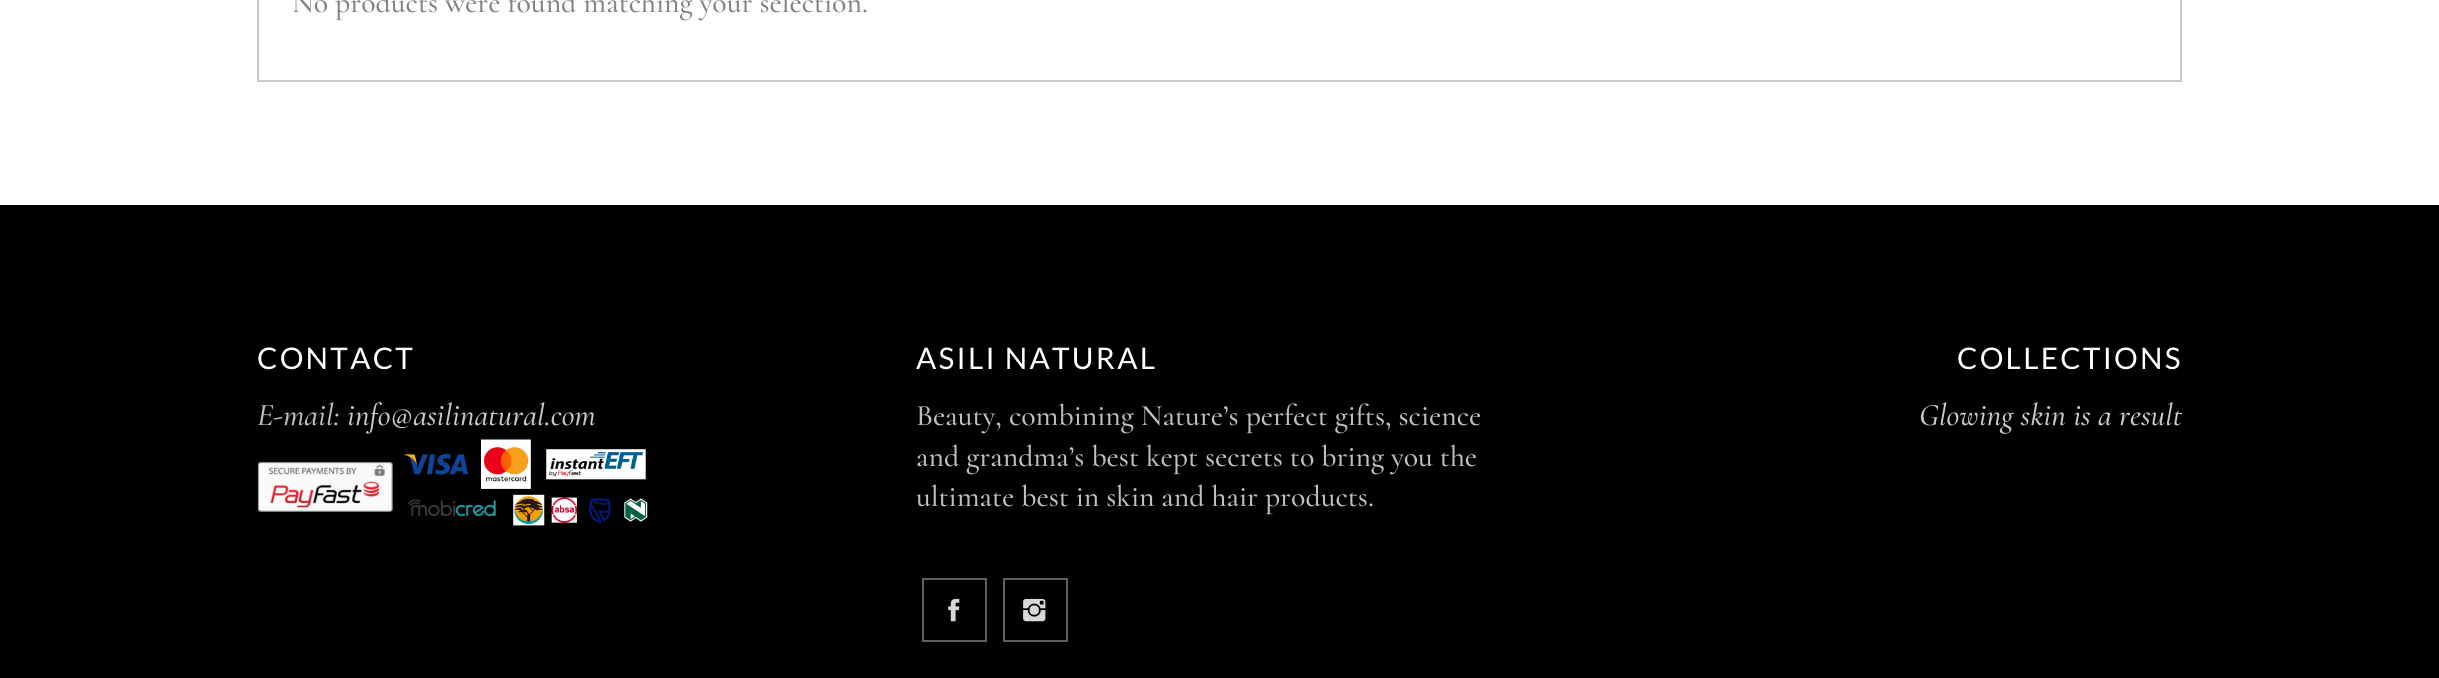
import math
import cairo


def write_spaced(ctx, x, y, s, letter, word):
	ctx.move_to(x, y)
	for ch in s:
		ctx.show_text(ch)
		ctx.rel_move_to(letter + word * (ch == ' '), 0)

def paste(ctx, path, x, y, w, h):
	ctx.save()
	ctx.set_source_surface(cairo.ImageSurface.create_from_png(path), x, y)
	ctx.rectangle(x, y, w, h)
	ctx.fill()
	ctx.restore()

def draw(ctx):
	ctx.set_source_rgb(1, 1, 1)
	ctx.paint()
	ctx.rectangle(258, -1, 1923, 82)
	ctx.set_source_rgb(0.796, 0.796, 0.796)
	ctx.stroke()
	ctx.select_font_face('Cormorant Medium')
	ctx.set_font_size(29.75)
	ctx.set_source_rgb(0.514, 0.514, 0.514)
	ctx.move_to(292, 12)
	ctx.show_text('No products were found matching your selection.')
	ctx.set_source_rgb(0, 0, 0)
	ctx.rectangle(0, 205, 2439, 473)
	ctx.fill()
	ctx.select_font_face('Lato')
	ctx.set_source_rgb(1, 1, 1)
	write_spaced(ctx, 257, 369, 'CONTACT', 2.25, 0)
	ctx.select_font_face('Cormorant Medium', cairo.FONT_SLANT_ITALIC)
	ctx.set_font_size(31.5)
	ctx.set_source_rgb(0.749, 0.749, 0.749)
	ctx.move_to(257, 425)
	ctx.show_text('E-mail:')
	ctx.set_source_rgb(0.792, 0.792, 0.792)
	ctx.move_to(347, 425)
	ctx.show_text('info@asilinatural.com')
	paste(ctx, 'media/1.png', 257, 439, 391, 87)
	ctx.select_font_face('Lato')
	ctx.set_font_size(29.75)
	ctx.set_source_rgb(1, 1, 1)
	write_spaced(ctx, 916, 369, 'ASILI NATURAL', 2.25, 0)
	ctx.select_font_face('Cormorant Medium')
	ctx.set_source_rgb(0.749, 0.749, 0.749)
	for x, y, s in [
		(916, 425, 'Beauty, combining Nature’s perfect gifts, science'),
		(916, 466, 'and grandma’s best kept secrets to bring you the'),
		(916, 506, 'ultimate best in skin and hair products.'),
	]:
		ctx.move_to(x, y)
		ctx.show_text(s)
	ctx.rectangle(923, 579, 63, 62)
	ctx.set_source_rgb(0.373, 0.373, 0.373)
	ctx.stroke()
	paste(ctx, 'media/2.png', 948, 598, 12, 24)
	ctx.rectangle(1004, 579, 63, 62)
	ctx.stroke()
	paste(ctx, 'media/3.png', 1023, 598, 23, 24)
	ctx.select_font_face('Lato')
	ctx.set_source_rgb(1, 1, 1)
	write_spaced(ctx, 1957, 369, 'COLLECTIONS', 2.25, 0)
	ctx.select_font_face('Cormorant Medium', cairo.FONT_SLANT_ITALIC)
	ctx.set_font_size(31.5)
	ctx.set_source_rgb(0.792, 0.792, 0.792)
	ctx.move_to(1919, 425)
	ctx.show_text('Glowing skin is a result')


surface = cairo.ImageSurface(cairo.FORMAT_RGB24, 2439, 678)
ctx = cairo.Context(surface)
options = cairo.FontOptions()
options.set_hint_metrics(cairo.HINT_METRICS_OFF)
options.set_hint_style(cairo.HINT_STYLE_NONE)
ctx.set_font_options(options)
ctx.set_miter_limit(4)
draw(ctx)
surface.write_to_png('image.png')
